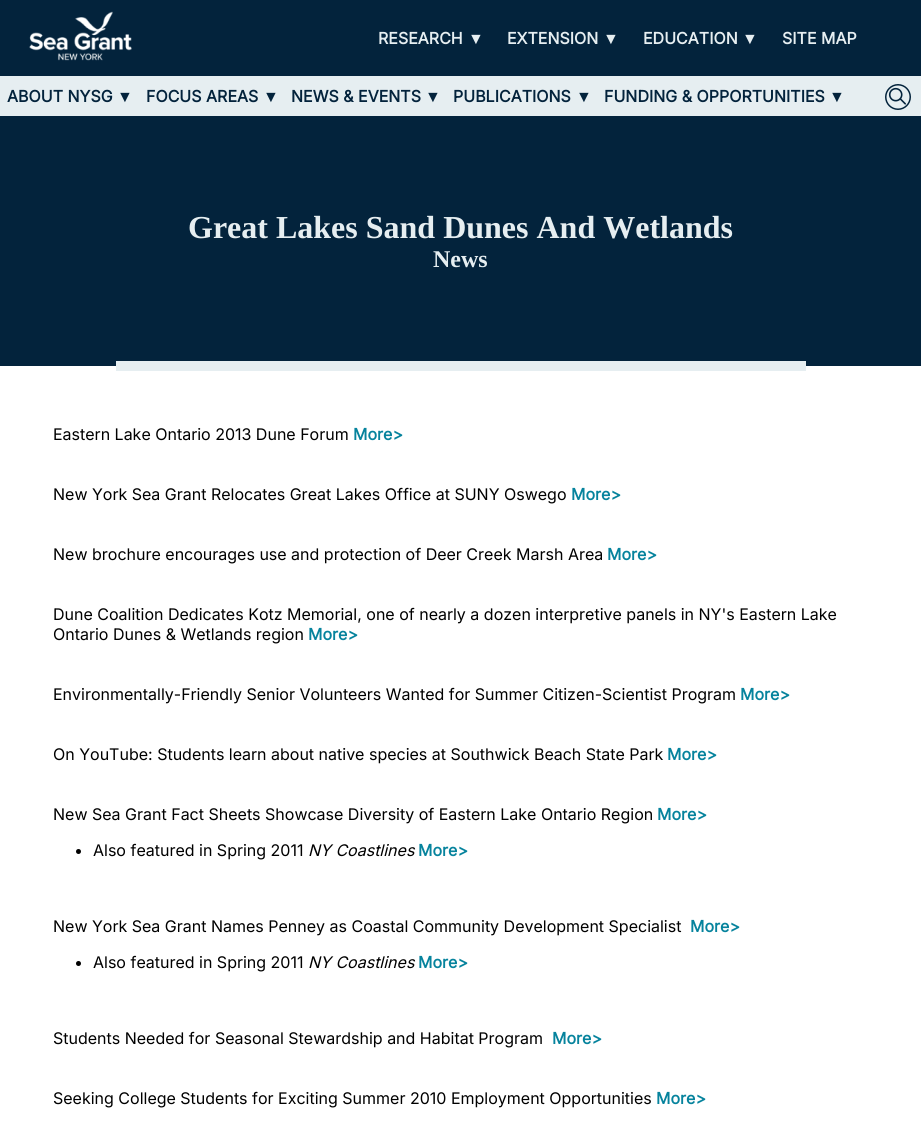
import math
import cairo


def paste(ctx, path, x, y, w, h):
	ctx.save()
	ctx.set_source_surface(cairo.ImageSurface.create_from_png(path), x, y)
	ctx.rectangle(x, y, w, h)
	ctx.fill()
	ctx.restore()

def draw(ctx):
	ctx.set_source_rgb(1, 1, 1)
	ctx.paint()
	ctx.set_source_rgb(0.012, 0.137, 0.235)
	ctx.rectangle(0, 0, 921, 76)
	ctx.fill()
	paste(ctx, 'media/1.png', 29, 11, 103, 50)
	ctx.select_font_face('Inter', cairo.FONT_SLANT_NORMAL, cairo.FONT_WEIGHT_BOLD)
	ctx.set_font_size(16)
	ctx.set_source_rgb(0.902, 0.933, 0.945)
	ctx.move_to(378, 44)
	ctx.show_text('RESEARCH')
	ctx.select_font_face('Liberation Serif', cairo.FONT_SLANT_NORMAL, cairo.FONT_WEIGHT_BOLD)
	ctx.move_to(468, 44)
	ctx.show_text('▼')
	ctx.select_font_face('Inter', cairo.FONT_SLANT_NORMAL, cairo.FONT_WEIGHT_BOLD)
	ctx.move_to(507, 44)
	ctx.show_text('EXTENSION')
	ctx.select_font_face('Liberation Serif', cairo.FONT_SLANT_NORMAL, cairo.FONT_WEIGHT_BOLD)
	ctx.move_to(603, 44)
	ctx.show_text('▼')
	ctx.select_font_face('Inter', cairo.FONT_SLANT_NORMAL, cairo.FONT_WEIGHT_BOLD)
	ctx.move_to(643, 44)
	ctx.show_text('EDUCATION')
	ctx.select_font_face('Liberation Serif', cairo.FONT_SLANT_NORMAL, cairo.FONT_WEIGHT_BOLD)
	ctx.move_to(742, 44)
	ctx.show_text('▼')
	ctx.select_font_face('Inter', cairo.FONT_SLANT_NORMAL, cairo.FONT_WEIGHT_BOLD)
	ctx.move_to(782, 44)
	ctx.show_text('SITE MAP')
	ctx.rectangle(0, 76, 921, 40)
	ctx.fill()
	ctx.set_source_rgb(0.012, 0.137, 0.235)
	ctx.move_to(7, 102)
	ctx.show_text('ABOUT NYSG')
	ctx.select_font_face('Liberation Serif', cairo.FONT_SLANT_NORMAL, cairo.FONT_WEIGHT_BOLD)
	ctx.move_to(117, 102)
	ctx.show_text('▼')
	ctx.select_font_face('Inter', cairo.FONT_SLANT_NORMAL, cairo.FONT_WEIGHT_BOLD)
	ctx.move_to(146, 102)
	ctx.show_text('FOCUS AREAS')
	ctx.select_font_face('Liberation Serif', cairo.FONT_SLANT_NORMAL, cairo.FONT_WEIGHT_BOLD)
	ctx.move_to(263, 102)
	ctx.show_text('▼')
	ctx.select_font_face('Inter', cairo.FONT_SLANT_NORMAL, cairo.FONT_WEIGHT_BOLD)
	ctx.move_to(291, 102)
	ctx.show_text('NEWS & EVENTS')
	ctx.select_font_face('Liberation Serif', cairo.FONT_SLANT_NORMAL, cairo.FONT_WEIGHT_BOLD)
	ctx.move_to(425, 102)
	ctx.show_text('▼')
	ctx.select_font_face('Inter', cairo.FONT_SLANT_NORMAL, cairo.FONT_WEIGHT_BOLD)
	ctx.move_to(453, 102)
	ctx.show_text('PUBLICATIONS')
	ctx.select_font_face('Liberation Serif', cairo.FONT_SLANT_NORMAL, cairo.FONT_WEIGHT_BOLD)
	ctx.move_to(576, 102)
	ctx.show_text('▼')
	ctx.select_font_face('Inter', cairo.FONT_SLANT_NORMAL, cairo.FONT_WEIGHT_BOLD)
	ctx.move_to(604, 102)
	ctx.show_text('FUNDING & OPPORTUNITIES')
	ctx.select_font_face('Liberation Serif', cairo.FONT_SLANT_NORMAL, cairo.FONT_WEIGHT_BOLD)
	ctx.move_to(829, 102)
	ctx.show_text('▼')
	paste(ctx, 'media/2.png', 885, 84, 26, 26)
	ctx.rectangle(0, 116, 921, 250)
	ctx.fill()
	ctx.set_font_size(32)
	ctx.set_source_rgb(0.902, 0.933, 0.945)
	ctx.move_to(188, 238)
	ctx.show_text('Great Lakes Sand Dunes And Wetlands')
	ctx.set_font_size(24)
	ctx.move_to(433, 267)
	ctx.show_text('News')
	ctx.rectangle(116, 361, 690, 10)
	ctx.fill()
	ctx.select_font_face('Inter')
	ctx.set_font_size(16)
	ctx.set_source_rgb(0, 0, 0)
	ctx.move_to(53, 440)
	ctx.show_text('Eastern Lake Ontario 2013 Dune Forum')
	ctx.select_font_face('Inter', cairo.FONT_SLANT_NORMAL, cairo.FONT_WEIGHT_BOLD)
	ctx.set_source_rgb(0.027, 0.514, 0.616)
	ctx.move_to(353, 440)
	ctx.show_text('More>')
	ctx.select_font_face('Inter')
	ctx.set_source_rgb(0, 0, 0)
	ctx.move_to(53, 500)
	ctx.show_text('New York Sea Grant Relocates Great Lakes Office at SUNY Oswego')
	ctx.select_font_face('Inter', cairo.FONT_SLANT_NORMAL, cairo.FONT_WEIGHT_BOLD)
	ctx.set_source_rgb(0.027, 0.514, 0.616)
	ctx.move_to(571, 500)
	ctx.show_text('More>')
	ctx.select_font_face('Inter')
	ctx.set_source_rgb(0, 0, 0)
	ctx.move_to(53, 560)
	ctx.show_text('New brochure encourages use and protection of Deer Creek Marsh Area')
	ctx.select_font_face('Inter', cairo.FONT_SLANT_NORMAL, cairo.FONT_WEIGHT_BOLD)
	ctx.set_source_rgb(0.027, 0.514, 0.616)
	ctx.move_to(607, 560)
	ctx.show_text('More>')
	ctx.select_font_face('Inter')
	ctx.set_source_rgb(0, 0, 0)
	ctx.move_to(53, 620)
	ctx.show_text('Dune Coalition Dedicates Kotz Memorial, one of nearly a dozen interpretive panels in NY\'s Eastern Lake')
	ctx.move_to(53, 640)
	ctx.show_text('Ontario Dunes & Wetlands region')
	ctx.select_font_face('Inter', cairo.FONT_SLANT_NORMAL, cairo.FONT_WEIGHT_BOLD)
	ctx.set_source_rgb(0.027, 0.514, 0.616)
	ctx.move_to(308, 640)
	ctx.show_text('More>')
	ctx.select_font_face('Inter')
	ctx.set_source_rgb(0, 0, 0)
	ctx.move_to(53, 700)
	ctx.show_text('Environmentally-Friendly Senior Volunteers Wanted for Summer Citizen-Scientist Program')
	ctx.select_font_face('Inter', cairo.FONT_SLANT_NORMAL, cairo.FONT_WEIGHT_BOLD)
	ctx.set_source_rgb(0.027, 0.514, 0.616)
	ctx.move_to(740, 700)
	ctx.show_text('More>')
	ctx.select_font_face('Inter')
	ctx.set_source_rgb(0, 0, 0)
	ctx.move_to(53, 760)
	ctx.show_text('On YouTube: Students learn about native species at Southwick Beach State Park')
	ctx.select_font_face('Inter', cairo.FONT_SLANT_NORMAL, cairo.FONT_WEIGHT_BOLD)
	ctx.set_source_rgb(0.027, 0.514, 0.616)
	ctx.move_to(667, 760)
	ctx.show_text('More>')
	ctx.select_font_face('Inter')
	ctx.set_source_rgb(0, 0, 0)
	ctx.move_to(53, 820)
	ctx.show_text('New Sea Grant Fact Sheets Showcase Diversity of Eastern Lake Ontario Region')
	ctx.select_font_face('Inter', cairo.FONT_SLANT_NORMAL, cairo.FONT_WEIGHT_BOLD)
	ctx.set_source_rgb(0.027, 0.514, 0.616)
	ctx.move_to(657, 820)
	ctx.show_text('More>')
	ctx.set_source_rgb(0, 0, 0)
	ctx.new_path()
	ctx.arc(78.5, 851.5, 2.5, 0, 2 * math.pi)
	ctx.fill()
	ctx.select_font_face('Inter')
	ctx.move_to(93, 856)
	ctx.show_text('Also featured in Spring 2011')
	ctx.select_font_face('Inter', cairo.FONT_SLANT_ITALIC)
	ctx.move_to(308, 856)
	ctx.show_text('NY Coastlines')
	ctx.select_font_face('Inter', cairo.FONT_SLANT_NORMAL, cairo.FONT_WEIGHT_BOLD)
	ctx.set_source_rgb(0.027, 0.514, 0.616)
	ctx.move_to(418, 856)
	ctx.show_text('More>')
	ctx.select_font_face('Inter')
	ctx.set_source_rgb(0, 0, 0)
	ctx.move_to(53, 932)
	ctx.show_text('New York Sea Grant Names Penney as Coastal Community Development Specialist')
	ctx.select_font_face('Inter', cairo.FONT_SLANT_NORMAL, cairo.FONT_WEIGHT_BOLD)
	ctx.set_source_rgb(0.027, 0.514, 0.616)
	ctx.move_to(690, 932)
	ctx.show_text('More>')
	ctx.set_source_rgb(0, 0, 0)
	ctx.new_path()
	ctx.arc(78.5, 963.5, 2.5, 0, 2 * math.pi)
	ctx.fill()
	ctx.select_font_face('Inter')
	ctx.move_to(93, 968)
	ctx.show_text('Also featured in Spring 2011')
	ctx.select_font_face('Inter', cairo.FONT_SLANT_ITALIC)
	ctx.move_to(308, 968)
	ctx.show_text('NY Coastlines')
	ctx.select_font_face('Inter', cairo.FONT_SLANT_NORMAL, cairo.FONT_WEIGHT_BOLD)
	ctx.set_source_rgb(0.027, 0.514, 0.616)
	ctx.move_to(418, 968)
	ctx.show_text('More>')
	ctx.select_font_face('Inter')
	ctx.set_source_rgb(0, 0, 0)
	ctx.move_to(53, 1044)
	ctx.show_text('Students Needed for Seasonal Stewardship and Habitat Program')
	ctx.select_font_face('Inter', cairo.FONT_SLANT_NORMAL, cairo.FONT_WEIGHT_BOLD)
	ctx.set_source_rgb(0.027, 0.514, 0.616)
	ctx.move_to(552, 1044)
	ctx.show_text('More>')
	ctx.select_font_face('Inter')
	ctx.set_source_rgb(0, 0, 0)
	ctx.move_to(53, 1104)
	ctx.show_text('Seeking College Students for Exciting Summer 2010 Employment Opportunities')
	ctx.select_font_face('Inter', cairo.FONT_SLANT_NORMAL, cairo.FONT_WEIGHT_BOLD)
	ctx.set_source_rgb(0.027, 0.514, 0.616)
	ctx.move_to(656, 1104)
	ctx.show_text('More>')


surface = cairo.ImageSurface(cairo.FORMAT_RGB24, 921, 1132)
ctx = cairo.Context(surface)
options = cairo.FontOptions()
options.set_hint_metrics(cairo.HINT_METRICS_OFF)
options.set_hint_style(cairo.HINT_STYLE_NONE)
ctx.set_font_options(options)
ctx.set_miter_limit(4)
draw(ctx)
surface.write_to_png('image.png')
